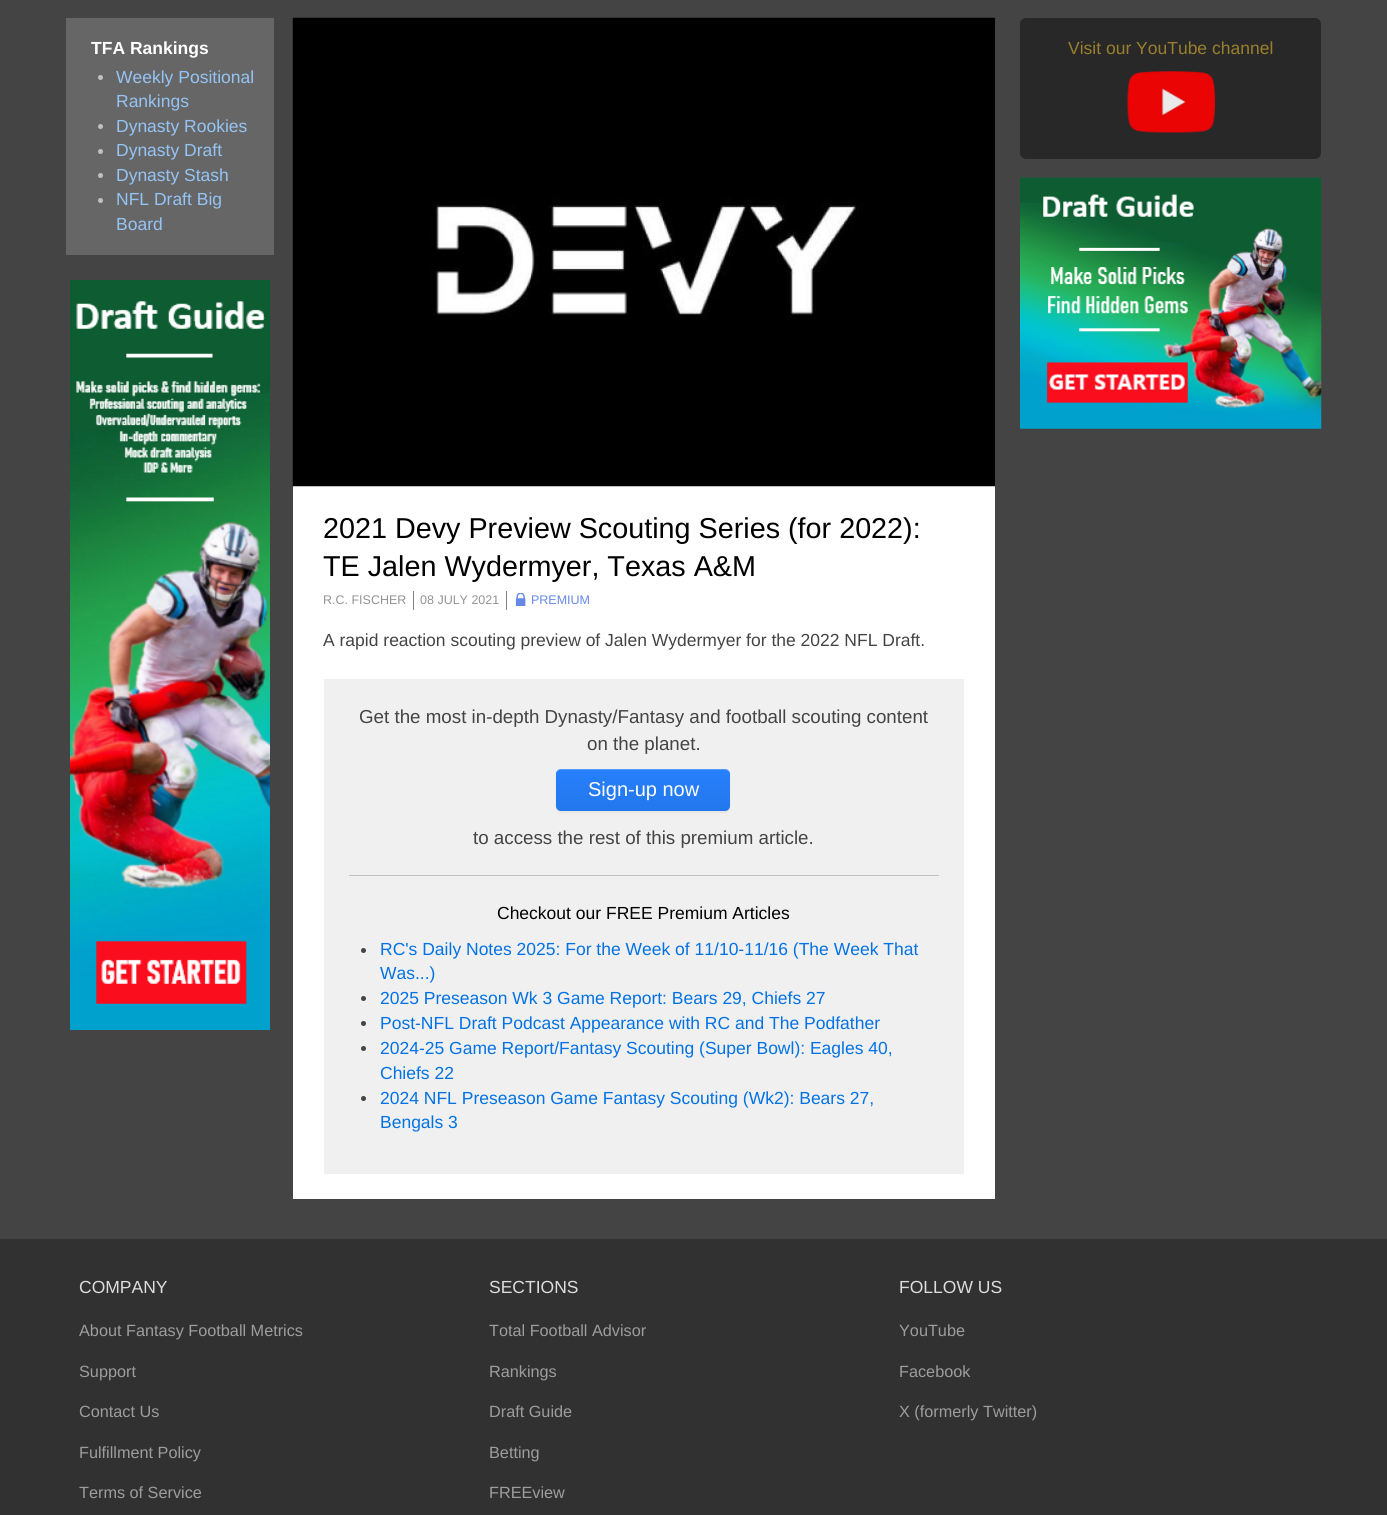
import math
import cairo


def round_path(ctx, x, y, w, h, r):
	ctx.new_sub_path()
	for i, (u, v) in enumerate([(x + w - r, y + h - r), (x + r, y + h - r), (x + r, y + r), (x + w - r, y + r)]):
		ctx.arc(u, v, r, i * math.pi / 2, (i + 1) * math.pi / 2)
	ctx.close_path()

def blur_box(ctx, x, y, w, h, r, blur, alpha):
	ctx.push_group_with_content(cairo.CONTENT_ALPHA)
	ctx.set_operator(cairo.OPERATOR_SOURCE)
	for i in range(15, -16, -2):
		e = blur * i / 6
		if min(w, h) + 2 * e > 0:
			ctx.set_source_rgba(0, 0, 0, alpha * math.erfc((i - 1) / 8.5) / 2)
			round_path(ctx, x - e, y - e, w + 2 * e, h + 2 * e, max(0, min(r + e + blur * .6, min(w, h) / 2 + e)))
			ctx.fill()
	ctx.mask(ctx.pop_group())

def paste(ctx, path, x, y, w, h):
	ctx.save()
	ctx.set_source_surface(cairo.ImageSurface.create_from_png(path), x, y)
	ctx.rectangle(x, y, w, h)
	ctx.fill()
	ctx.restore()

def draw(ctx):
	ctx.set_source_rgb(0.267, 0.267, 0.267)
	ctx.paint()
	ctx.set_source_rgb(0.4, 0.4, 0.4)
	ctx.rectangle(66, 18, 208, 237)
	ctx.fill()
	ctx.select_font_face('Liberation Sans', cairo.FONT_SLANT_NORMAL, cairo.FONT_WEIGHT_BOLD)
	ctx.set_font_size(17.5)
	ctx.set_source_rgb(1, 1, 1)
	ctx.move_to(91, 54)
	ctx.show_text('TFA Rankings')
	ctx.set_source_rgb(0.753, 0.753, 0.753)
	ctx.new_path()
	ctx.arc(100.5, 77.5, 2.5, 0, 2 * math.pi)
	ctx.fill()
	ctx.select_font_face('Liberation Sans')
	ctx.set_source_rgb(0.584, 0.769, 0.957)
	ctx.move_to(116, 83)
	ctx.show_text('Weekly Positional')
	ctx.move_to(116, 107)
	ctx.show_text('Rankings')
	ctx.set_source_rgb(0.753, 0.753, 0.753)
	ctx.new_path()
	ctx.arc(100.5, 126.5, 2.5, 0, 2 * math.pi)
	ctx.fill()
	ctx.set_source_rgb(0.584, 0.769, 0.957)
	ctx.move_to(116, 132)
	ctx.show_text('Dynasty Rookies')
	ctx.set_source_rgb(0.753, 0.753, 0.753)
	ctx.new_path()
	ctx.arc(100.5, 151.5, 2.5, 0, 2 * math.pi)
	ctx.fill()
	ctx.set_source_rgb(0.584, 0.769, 0.957)
	ctx.move_to(116, 156)
	ctx.show_text('Dynasty Draft')
	ctx.set_source_rgb(0.753, 0.753, 0.753)
	ctx.new_path()
	ctx.arc(100.5, 175.5, 2.5, 0, 2 * math.pi)
	ctx.fill()
	ctx.set_source_rgb(0.584, 0.769, 0.957)
	ctx.move_to(116, 181)
	ctx.show_text('Dynasty Stash')
	ctx.set_source_rgb(0.753, 0.753, 0.753)
	ctx.new_path()
	ctx.arc(100.5, 200.5, 2.5, 0, 2 * math.pi)
	ctx.fill()
	ctx.set_source_rgb(0.584, 0.769, 0.957)
	ctx.move_to(116, 205)
	ctx.show_text('NFL Draft Big')
	ctx.move_to(116, 230)
	ctx.show_text('Board')
	paste(ctx, 'media/1.png', 70, 280, 200, 750)
	ctx.set_source_rgb(0.157, 0.157, 0.157)
	round_path(ctx, 1020, 18, 301, 141, 6)
	ctx.fill()
	ctx.set_source_rgb(0.608, 0.498, 0.173)
	ctx.move_to(1068, 54)
	ctx.show_text('Visit our YouTube channel')
	paste(ctx, 'media/2.png', 1127, 71, 88, 62)
	paste(ctx, 'media/3.png', 1020, 177, 302, 252)
	ctx.set_source_rgb(1, 1, 1)
	ctx.rectangle(293, 486, 702, 713)
	ctx.fill()
	paste(ctx, 'media/4.png', 292, 17, 703, 470)
	ctx.set_font_size(28.75)
	ctx.set_source_rgb(0, 0, 0)
	ctx.move_to(323, 538)
	ctx.show_text('2021 Devy Preview Scouting Series (for 2022):')
	ctx.move_to(323, 576)
	ctx.show_text('TE Jalen Wydermyer, Texas A&M')
	ctx.set_source_rgb(0.502, 0.502, 0.502)
	ctx.rectangle(413, 591, 1, 19)
	ctx.fill()
	ctx.set_font_size(12.5)
	ctx.set_source_rgb(0.576, 0.576, 0.576)
	ctx.move_to(323, 604)
	ctx.show_text('R.C. FISCHER')
	ctx.set_source_rgb(0.502, 0.502, 0.502)
	ctx.rectangle(506, 591, 1, 19)
	ctx.fill()
	ctx.set_source_rgb(0.576, 0.576, 0.576)
	ctx.move_to(420, 604)
	ctx.show_text('08 JULY 2021')
	paste(ctx, 'media/5.png', 515, 593, 11, 13)
	ctx.set_source_rgb(0.396, 0.537, 0.894)
	ctx.move_to(531, 604)
	ctx.show_text('PREMIUM')
	ctx.set_font_size(17.5)
	ctx.set_source_rgb(0.267, 0.267, 0.267)
	ctx.move_to(323, 646)
	ctx.show_text('A rapid reaction scouting preview of Jalen Wydermyer for the 2022 NFL Draft.')
	ctx.set_source_rgb(0.941, 0.941, 0.941)
	ctx.rectangle(324, 679, 640, 495)
	ctx.fill()
	ctx.set_font_size(18.75)
	ctx.set_source_rgb(0.267, 0.267, 0.267)
	ctx.move_to(359, 723)
	ctx.show_text('Get the most in-depth Dynasty/Fantasy and football scouting content')
	ctx.move_to(587, 750)
	ctx.show_text('on the planet.')
	ctx.set_source_rgb(0, 0, 0)
	blur_box(ctx, 556, 770, 174, 43, 5, 1, 0.05)
	gradient = cairo.LinearGradient(643, 769, 643, 811)
	gradient.add_color_stop_rgba(0, 0.149, 0.502, 0.992, 1)
	gradient.add_color_stop_rgba(1, 0.137, 0.467, 0.925, 1)
	ctx.set_source(gradient)
	round_path(ctx, 556, 769, 174, 42, 5)
	ctx.fill()
	ctx.set_source_rgba(1, 1, 1, 0.2)
	ctx.new_path()
	ctx.move_to(561, 770)
	ctx.line_to(725, 770)
	ctx.curve_to(728, 770, 730, 772, 730, 775)
	ctx.curve_to(730, 772, 729, 770, 726, 769)
	ctx.line_to(561, 769)
	ctx.curve_to(558, 769, 556, 772, 556, 775)
	ctx.curve_to(556, 772, 558, 770, 561, 770)
	ctx.close_path()
	ctx.fill()
	ctx.set_font_size(20)
	ctx.set_source_rgb(1, 1, 1)
	ctx.move_to(588, 796)
	ctx.show_text('Sign-up now')
	ctx.set_font_size(18.75)
	ctx.set_source_rgb(0.267, 0.267, 0.267)
	ctx.move_to(473, 844)
	ctx.show_text('to access the rest of this premium article.')
	ctx.set_source_rgb(0.753, 0.753, 0.753)
	ctx.rectangle(349, 875, 590, 1)
	ctx.fill()
	ctx.set_font_size(17.5)
	ctx.set_source_rgb(0, 0, 0)
	ctx.move_to(497, 919)
	ctx.show_text('Checkout our FREE Premium Articles')
	ctx.set_source_rgb(0.267, 0.267, 0.267)
	ctx.new_path()
	ctx.arc(363.5, 950.5, 2.5, 0, 2 * math.pi)
	ctx.fill()
	ctx.set_source_rgb(0.008, 0.447, 0.894)
	ctx.move_to(380, 955)
	ctx.show_text('RC\'s Daily Notes 2025: For the Week of 11/10-11/16 (The Week That')
	ctx.move_to(380, 979)
	ctx.show_text('Was...)')
	ctx.set_source_rgb(0.267, 0.267, 0.267)
	ctx.new_path()
	ctx.arc(363.5, 998.5, 2.5, 0, 2 * math.pi)
	ctx.fill()
	ctx.set_source_rgb(0.008, 0.447, 0.894)
	ctx.move_to(380, 1004)
	ctx.show_text('2025 Preseason Wk 3 Game Report: Bears 29, Chiefs 27')
	ctx.set_source_rgb(0.267, 0.267, 0.267)
	ctx.new_path()
	ctx.arc(363.5, 1023.5, 2.5, 0, 2 * math.pi)
	ctx.fill()
	ctx.set_source_rgb(0.008, 0.447, 0.894)
	ctx.move_to(380, 1029)
	ctx.show_text('Post-NFL Draft Podcast Appearance with RC and The Podfather')
	ctx.set_source_rgb(0.267, 0.267, 0.267)
	ctx.new_path()
	ctx.arc(363.5, 1048.5, 2.5, 0, 2 * math.pi)
	ctx.fill()
	ctx.set_source_rgb(0.008, 0.447, 0.894)
	ctx.move_to(380, 1054)
	ctx.show_text('2024-25 Game Report/Fantasy Scouting (Super Bowl): Eagles 40,')
	ctx.move_to(380, 1079)
	ctx.show_text('Chiefs 22')
	ctx.set_source_rgb(0.267, 0.267, 0.267)
	ctx.new_path()
	ctx.arc(363.5, 1098.5, 2.5, 0, 2 * math.pi)
	ctx.fill()
	ctx.set_source_rgb(0.008, 0.447, 0.894)
	ctx.move_to(380, 1104)
	ctx.show_text('2024 NFL Preseason Game Fantasy Scouting (Wk2): Bears 27,')
	ctx.move_to(380, 1128)
	ctx.show_text('Bengals 3')
	ctx.set_source_rgb(0.192, 0.192, 0.192)
	ctx.rectangle(0, 1239, 1387, 276)
	ctx.fill()
	ctx.set_source_rgb(0.867, 0.867, 0.867)
	ctx.move_to(79, 1293)
	ctx.show_text('COMPANY')
	ctx.set_font_size(16.25)
	ctx.set_source_rgb(0.616, 0.616, 0.616)
	for x, y, s in [
		(79, 1336, 'About Fantasy Football Metrics'),
		(79, 1377, 'Support'),
		(79, 1417, 'Contact Us'),
		(79, 1458, 'Fulfillment Policy'),
		(79, 1498, 'Terms of Service'),
	]:
		ctx.move_to(x, y)
		ctx.show_text(s)
	ctx.set_font_size(17.5)
	ctx.set_source_rgb(0.867, 0.867, 0.867)
	ctx.move_to(489, 1293)
	ctx.show_text('SECTIONS')
	ctx.set_font_size(16.25)
	ctx.set_source_rgb(0.616, 0.616, 0.616)
	for x, y, s in [
		(489, 1336, 'Total Football Advisor'),
		(489, 1377, 'Rankings'),
		(489, 1417, 'Draft Guide'),
		(489, 1458, 'Betting'),
		(489, 1498, 'FREEview'),
	]:
		ctx.move_to(x, y)
		ctx.show_text(s)
	ctx.set_font_size(17.5)
	ctx.set_source_rgb(0.867, 0.867, 0.867)
	ctx.move_to(899, 1293)
	ctx.show_text('FOLLOW US')
	ctx.set_font_size(16.25)
	ctx.set_source_rgb(0.616, 0.616, 0.616)
	for x, y, s in [
		(899, 1336, 'YouTube'),
		(899, 1377, 'Facebook'),
		(899, 1417, 'X (formerly Twitter)'),
	]:
		ctx.move_to(x, y)
		ctx.show_text(s)


surface = cairo.ImageSurface(cairo.FORMAT_RGB24, 1387, 1515)
ctx = cairo.Context(surface)
options = cairo.FontOptions()
options.set_hint_metrics(cairo.HINT_METRICS_OFF)
options.set_hint_style(cairo.HINT_STYLE_NONE)
ctx.set_font_options(options)
ctx.set_miter_limit(4)
draw(ctx)
surface.write_to_png('image.png')
